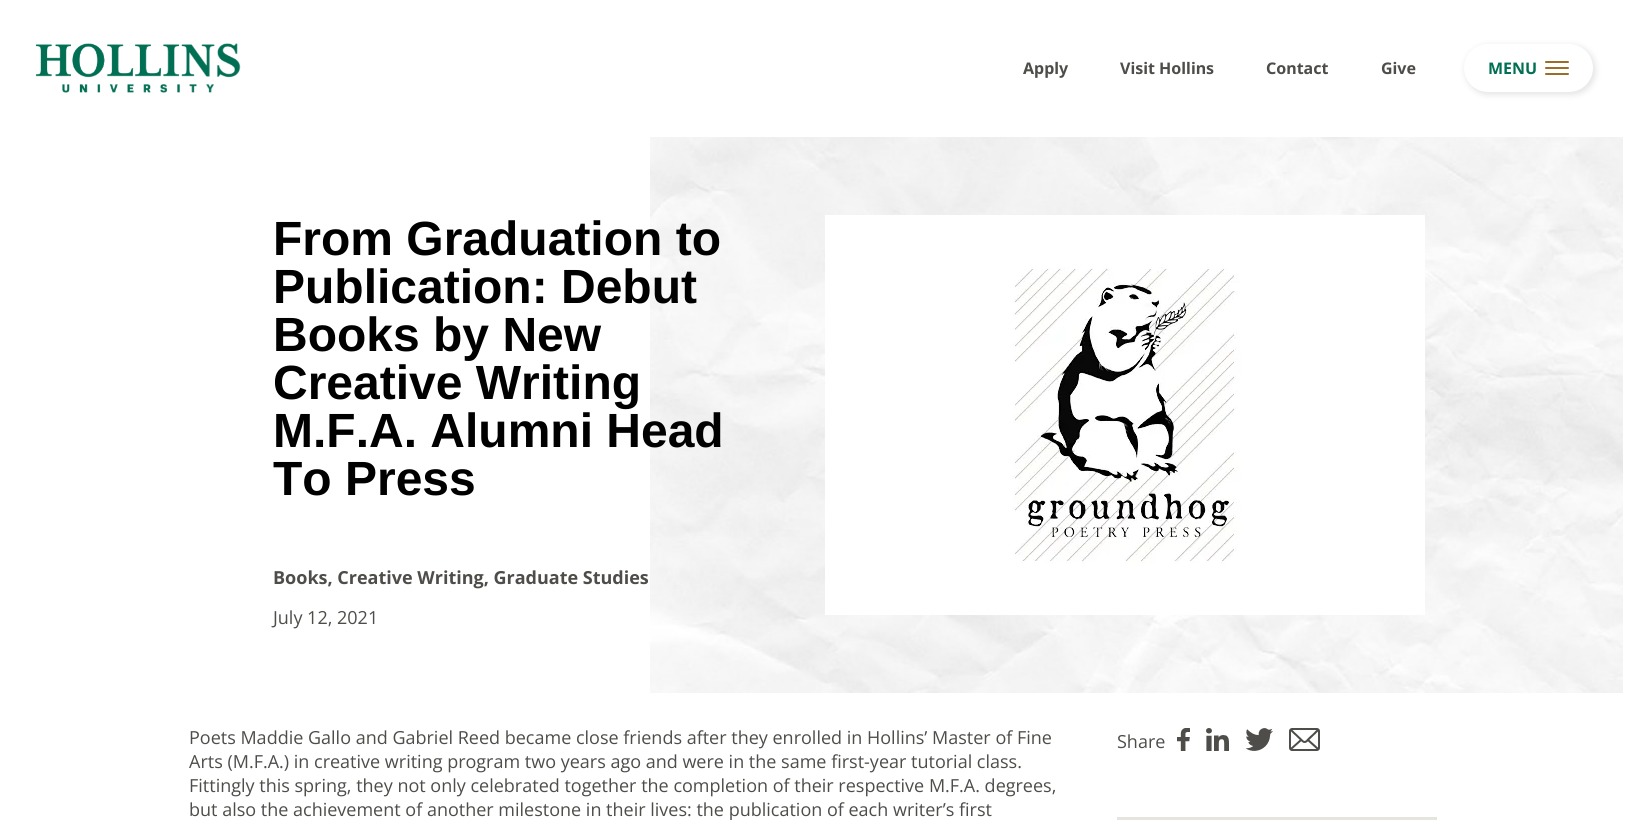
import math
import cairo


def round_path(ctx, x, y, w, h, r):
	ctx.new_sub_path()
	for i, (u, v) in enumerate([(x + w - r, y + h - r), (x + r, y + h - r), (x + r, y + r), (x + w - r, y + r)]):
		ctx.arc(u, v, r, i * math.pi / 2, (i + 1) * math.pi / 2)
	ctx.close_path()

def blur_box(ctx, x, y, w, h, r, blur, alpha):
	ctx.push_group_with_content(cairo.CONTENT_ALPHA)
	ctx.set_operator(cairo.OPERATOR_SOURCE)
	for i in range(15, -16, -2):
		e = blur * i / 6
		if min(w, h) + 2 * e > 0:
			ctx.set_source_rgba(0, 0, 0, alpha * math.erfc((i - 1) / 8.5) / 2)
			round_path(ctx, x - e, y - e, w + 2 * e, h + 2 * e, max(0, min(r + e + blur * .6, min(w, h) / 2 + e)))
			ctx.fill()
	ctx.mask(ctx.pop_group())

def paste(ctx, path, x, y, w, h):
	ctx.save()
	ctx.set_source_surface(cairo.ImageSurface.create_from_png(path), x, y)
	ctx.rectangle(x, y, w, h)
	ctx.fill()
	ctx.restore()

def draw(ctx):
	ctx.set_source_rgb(1, 1, 1)
	ctx.paint()
	paste(ctx, 'media/1.png', 35, 43, 206, 50)
	ctx.select_font_face('Noto Sans', cairo.FONT_SLANT_NORMAL, cairo.FONT_WEIGHT_BOLD)
	ctx.set_font_size(16)
	ctx.set_source_rgb(0.306, 0.302, 0.286)
	for x, y, s in [
		(1023, 74, 'Apply'),
		(1120, 74, 'Visit Hollins'),
		(1266, 74, 'Contact'),
		(1381, 74, 'Give'),
	]:
		ctx.move_to(x, y)
		ctx.show_text(s)
	ctx.set_source_rgb(0, 0, 0)
	blur_box(ctx, 1465, 45, 131, 50, 25, 3, 0.1)
	ctx.set_source_rgb(1, 1, 1)
	round_path(ctx, 1464, 44, 129, 48, 24)
	ctx.fill()
	ctx.set_source_rgb(0, 0.435, 0.329)
	ctx.move_to(1488, 74)
	ctx.show_text('MENU')
	ctx.set_source_rgb(0.6, 0.435, 0.157)
	round_path(ctx, 1545, 61, 24, 2, 1)
	ctx.fill()
	round_path(ctx, 1545, 67, 24, 2, 1)
	ctx.fill()
	round_path(ctx, 1545, 73, 24, 2, 1)
	ctx.fill()
	paste(ctx, 'media/2.png', 650, 137, 973, 556)
	ctx.select_font_face('Liberation Sans', cairo.FONT_SLANT_NORMAL, cairo.FONT_WEIGHT_BOLD)
	ctx.set_font_size(48)
	ctx.set_source_rgb(0, 0, 0)
	for x, y, s in [
		(273, 255, 'From Graduation to'),
		(273, 303, 'Publication: Debut'),
		(273, 351, 'Books by New'),
		(273, 399, 'Creative Writing'),
		(273, 447, 'M.F.A. Alumni Head'),
		(273, 495, 'To Press'),
	]:
		ctx.move_to(x, y)
		ctx.show_text(s)
	ctx.select_font_face('Open Sans', cairo.FONT_SLANT_NORMAL, cairo.FONT_WEIGHT_BOLD)
	ctx.set_font_size(18)
	ctx.set_source_rgb(0.306, 0.302, 0.286)
	ctx.move_to(273, 584)
	ctx.show_text('Books, Creative Writing, Graduate Studies')
	ctx.select_font_face('Open Sans')
	ctx.move_to(273, 624)
	ctx.show_text('July 12, 2021')
	paste(ctx, 'media/3.png', 825, 215, 600, 400)
	for x, y, s in [
		(189, 744, 'Poets Maddie Gallo and Gabriel Reed became close friends after they enrolled in Hollins’ Master of Fine'),
		(189, 768, 'Arts (M.F.A.) in creative writing program two years ago and were in the same first-year tutorial class.'),
		(189, 792, 'Fittingly this spring, they not only celebrated together the completion of their respective M.F.A. degrees,'),
		(189, 816, 'but also the achievement of another milestone in their lives: the publication of each writer’s first'),
		(1117, 748, 'Share'),
	]:
		ctx.move_to(x, y)
		ctx.show_text(s)
	paste(ctx, 'media/4.png', 1177, 728, 13, 23)
	paste(ctx, 'media/5.png', 1206, 728, 23, 23)
	paste(ctx, 'media/6.png', 1245, 728, 28, 23)
	paste(ctx, 'media/7.png', 1289, 728, 31, 23)
	ctx.set_source_rgb(0.902, 0.894, 0.875)
	ctx.rectangle(1117, 817, 320, 3)
	ctx.fill()


surface = cairo.ImageSurface(cairo.FORMAT_RGB24, 1625, 820)
ctx = cairo.Context(surface)
options = cairo.FontOptions()
options.set_hint_metrics(cairo.HINT_METRICS_OFF)
options.set_hint_style(cairo.HINT_STYLE_NONE)
ctx.set_font_options(options)
ctx.set_miter_limit(4)
draw(ctx)
surface.write_to_png('image.png')
